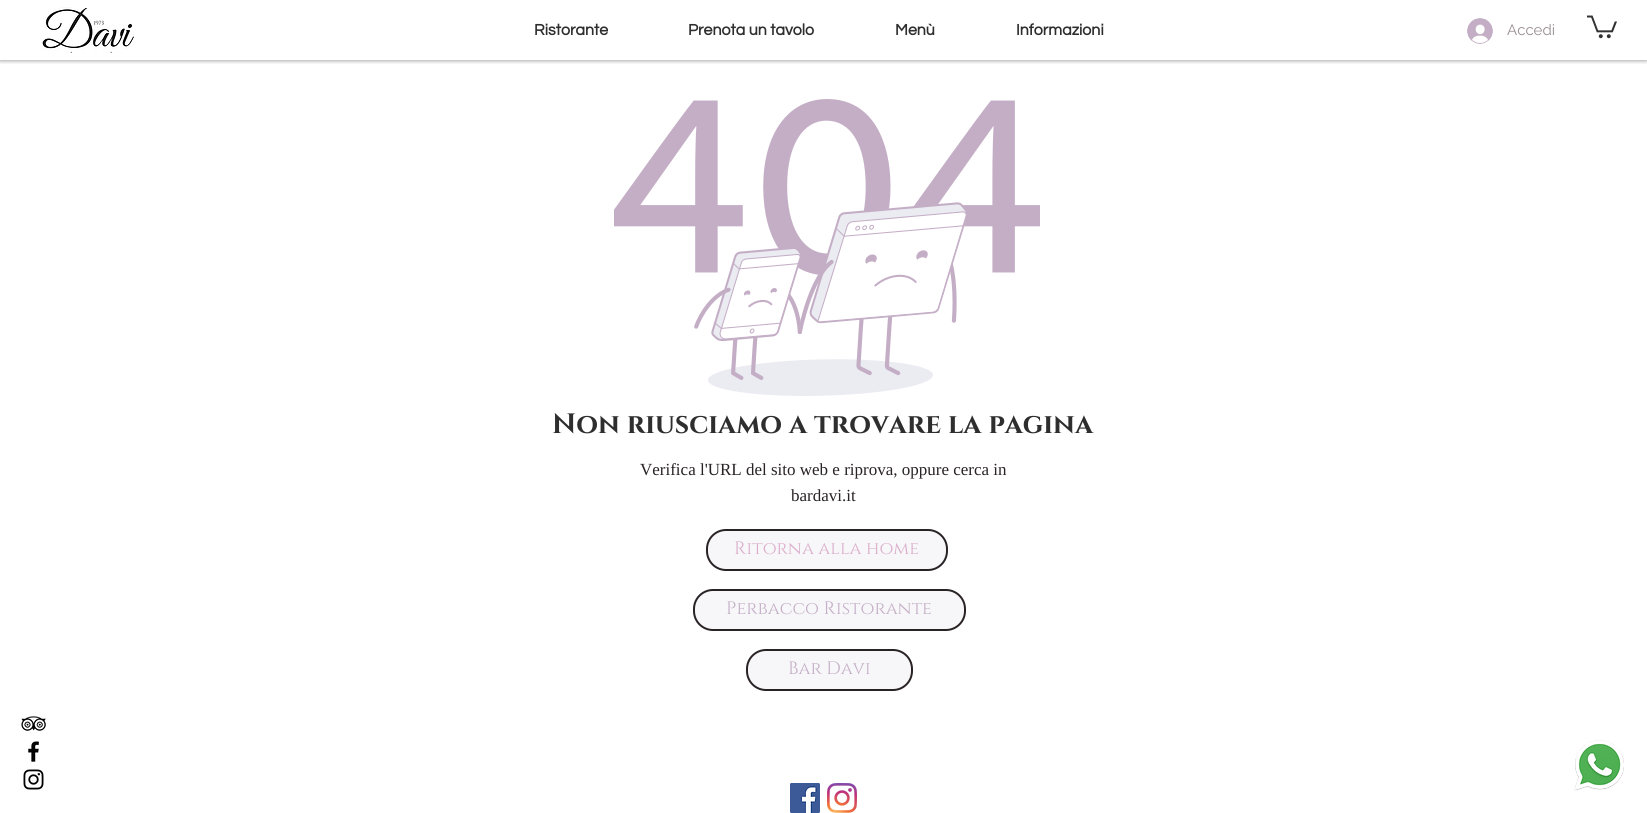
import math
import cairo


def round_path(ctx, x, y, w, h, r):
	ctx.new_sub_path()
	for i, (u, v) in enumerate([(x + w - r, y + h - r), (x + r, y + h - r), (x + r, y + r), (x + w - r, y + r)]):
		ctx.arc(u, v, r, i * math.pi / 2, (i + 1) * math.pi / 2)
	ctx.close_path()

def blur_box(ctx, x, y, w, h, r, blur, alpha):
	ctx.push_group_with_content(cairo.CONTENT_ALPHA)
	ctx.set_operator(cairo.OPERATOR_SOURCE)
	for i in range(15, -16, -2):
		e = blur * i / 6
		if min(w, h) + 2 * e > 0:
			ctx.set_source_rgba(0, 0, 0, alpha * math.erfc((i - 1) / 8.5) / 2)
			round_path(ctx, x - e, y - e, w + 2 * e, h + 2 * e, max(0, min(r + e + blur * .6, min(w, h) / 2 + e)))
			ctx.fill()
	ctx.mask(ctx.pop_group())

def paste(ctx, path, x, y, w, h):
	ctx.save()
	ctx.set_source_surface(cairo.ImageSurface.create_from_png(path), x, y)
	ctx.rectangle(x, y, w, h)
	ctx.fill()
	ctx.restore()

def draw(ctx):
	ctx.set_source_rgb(1, 1, 1)
	ctx.paint()
	ctx.save()
	ctx.rectangle(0, 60, 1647, 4)
	ctx.clip()
	ctx.set_source_rgb(0, 0, 0)
	blur_box(ctx, 0, 0, 1647, 60, 0, 2.5, 0.5)
	ctx.restore()
	paste(ctx, 'media/1.png', 42, 7, 92, 46)
	ctx.select_font_face('Questrial', cairo.FONT_SLANT_NORMAL, cairo.FONT_WEIGHT_BOLD)
	ctx.set_font_size(16)
	ctx.set_source_rgb(0.184, 0.18, 0.18)
	for x, y, s in [
		(534, 35, 'Ristorante'),
		(688, 35, 'Prenota un tavolo'),
		(895, 35, 'Menù'),
		(1016, 35, 'Informazioni'),
	]:
		ctx.move_to(x, y)
		ctx.show_text(s)
	paste(ctx, 'media/2.png', 1467, 18, 26, 26)
	ctx.select_font_face('Raleway')
	ctx.set_font_size(15)
	ctx.set_source_rgb(0.6, 0.553, 0.561)
	ctx.move_to(1507, 35)
	ctx.show_text('Accedi')
	paste(ctx, 'media/3.png', 1587, 15, 30, 24)
	paste(ctx, 'media/4.png', 614, 99, 426, 297)
	ctx.select_font_face('Cinzel', cairo.FONT_SLANT_NORMAL, cairo.FONT_WEIGHT_BOLD)
	ctx.set_font_size(28)
	ctx.set_source_rgb(0.184, 0.18, 0.18)
	ctx.move_to(552, 433)
	ctx.show_text('Non riusciamo a trovare la pagina')
	ctx.select_font_face('Liberation Serif')
	ctx.set_font_size(17)
	ctx.set_source_rgb(0.161, 0.137, 0.145)
	ctx.move_to(640, 475)
	ctx.show_text('Verifica l\'URL del sito web e riprova, oppure cerca in')
	ctx.move_to(791, 501)
	ctx.show_text('bardavi.it')
	ctx.set_source_rgb(0.965, 0.965, 0.976)
	round_path(ctx, 707, 530, 240, 40, 19)
	ctx.fill_preserve()
	ctx.set_source_rgb(0.161, 0.137, 0.145)
	ctx.stroke()
	ctx.select_font_face('Cinzel')
	ctx.set_font_size(18)
	ctx.set_source_rgb(0.859, 0.678, 0.792)
	ctx.move_to(734, 554)
	ctx.show_text('Ritorna alla home')
	ctx.set_source_rgb(0.965, 0.965, 0.976)
	round_path(ctx, 694, 590, 271, 40, 19)
	ctx.fill_preserve()
	ctx.set_source_rgb(0.161, 0.137, 0.145)
	ctx.stroke()
	ctx.set_source_rgb(0.769, 0.682, 0.776)
	ctx.move_to(726, 614)
	ctx.show_text('Perbacco Ristorante')
	ctx.set_source_rgb(0.965, 0.965, 0.976)
	round_path(ctx, 747, 650, 165, 40, 19)
	ctx.fill_preserve()
	ctx.set_source_rgb(0.161, 0.137, 0.145)
	ctx.stroke()
	ctx.set_source_rgb(0.769, 0.682, 0.776)
	ctx.move_to(788, 674)
	ctx.show_text('Bar Davi')
	paste(ctx, 'media/5.png', 21, 716, 25, 15)
	paste(ctx, 'media/6.png', 28, 741, 11, 21)
	paste(ctx, 'media/7.png', 23, 769, 21, 21)
	paste(ctx, 'media/8.png', 1574, 740, 50, 51)
	paste(ctx, 'media/9.png', 790, 783, 30, 30)
	paste(ctx, 'media/10.png', 827, 783, 30, 30)


surface = cairo.ImageSurface(cairo.FORMAT_RGB24, 1647, 813)
ctx = cairo.Context(surface)
options = cairo.FontOptions()
options.set_hint_metrics(cairo.HINT_METRICS_OFF)
options.set_hint_style(cairo.HINT_STYLE_NONE)
ctx.set_font_options(options)
ctx.set_miter_limit(4)
draw(ctx)
surface.write_to_png('image.png')
